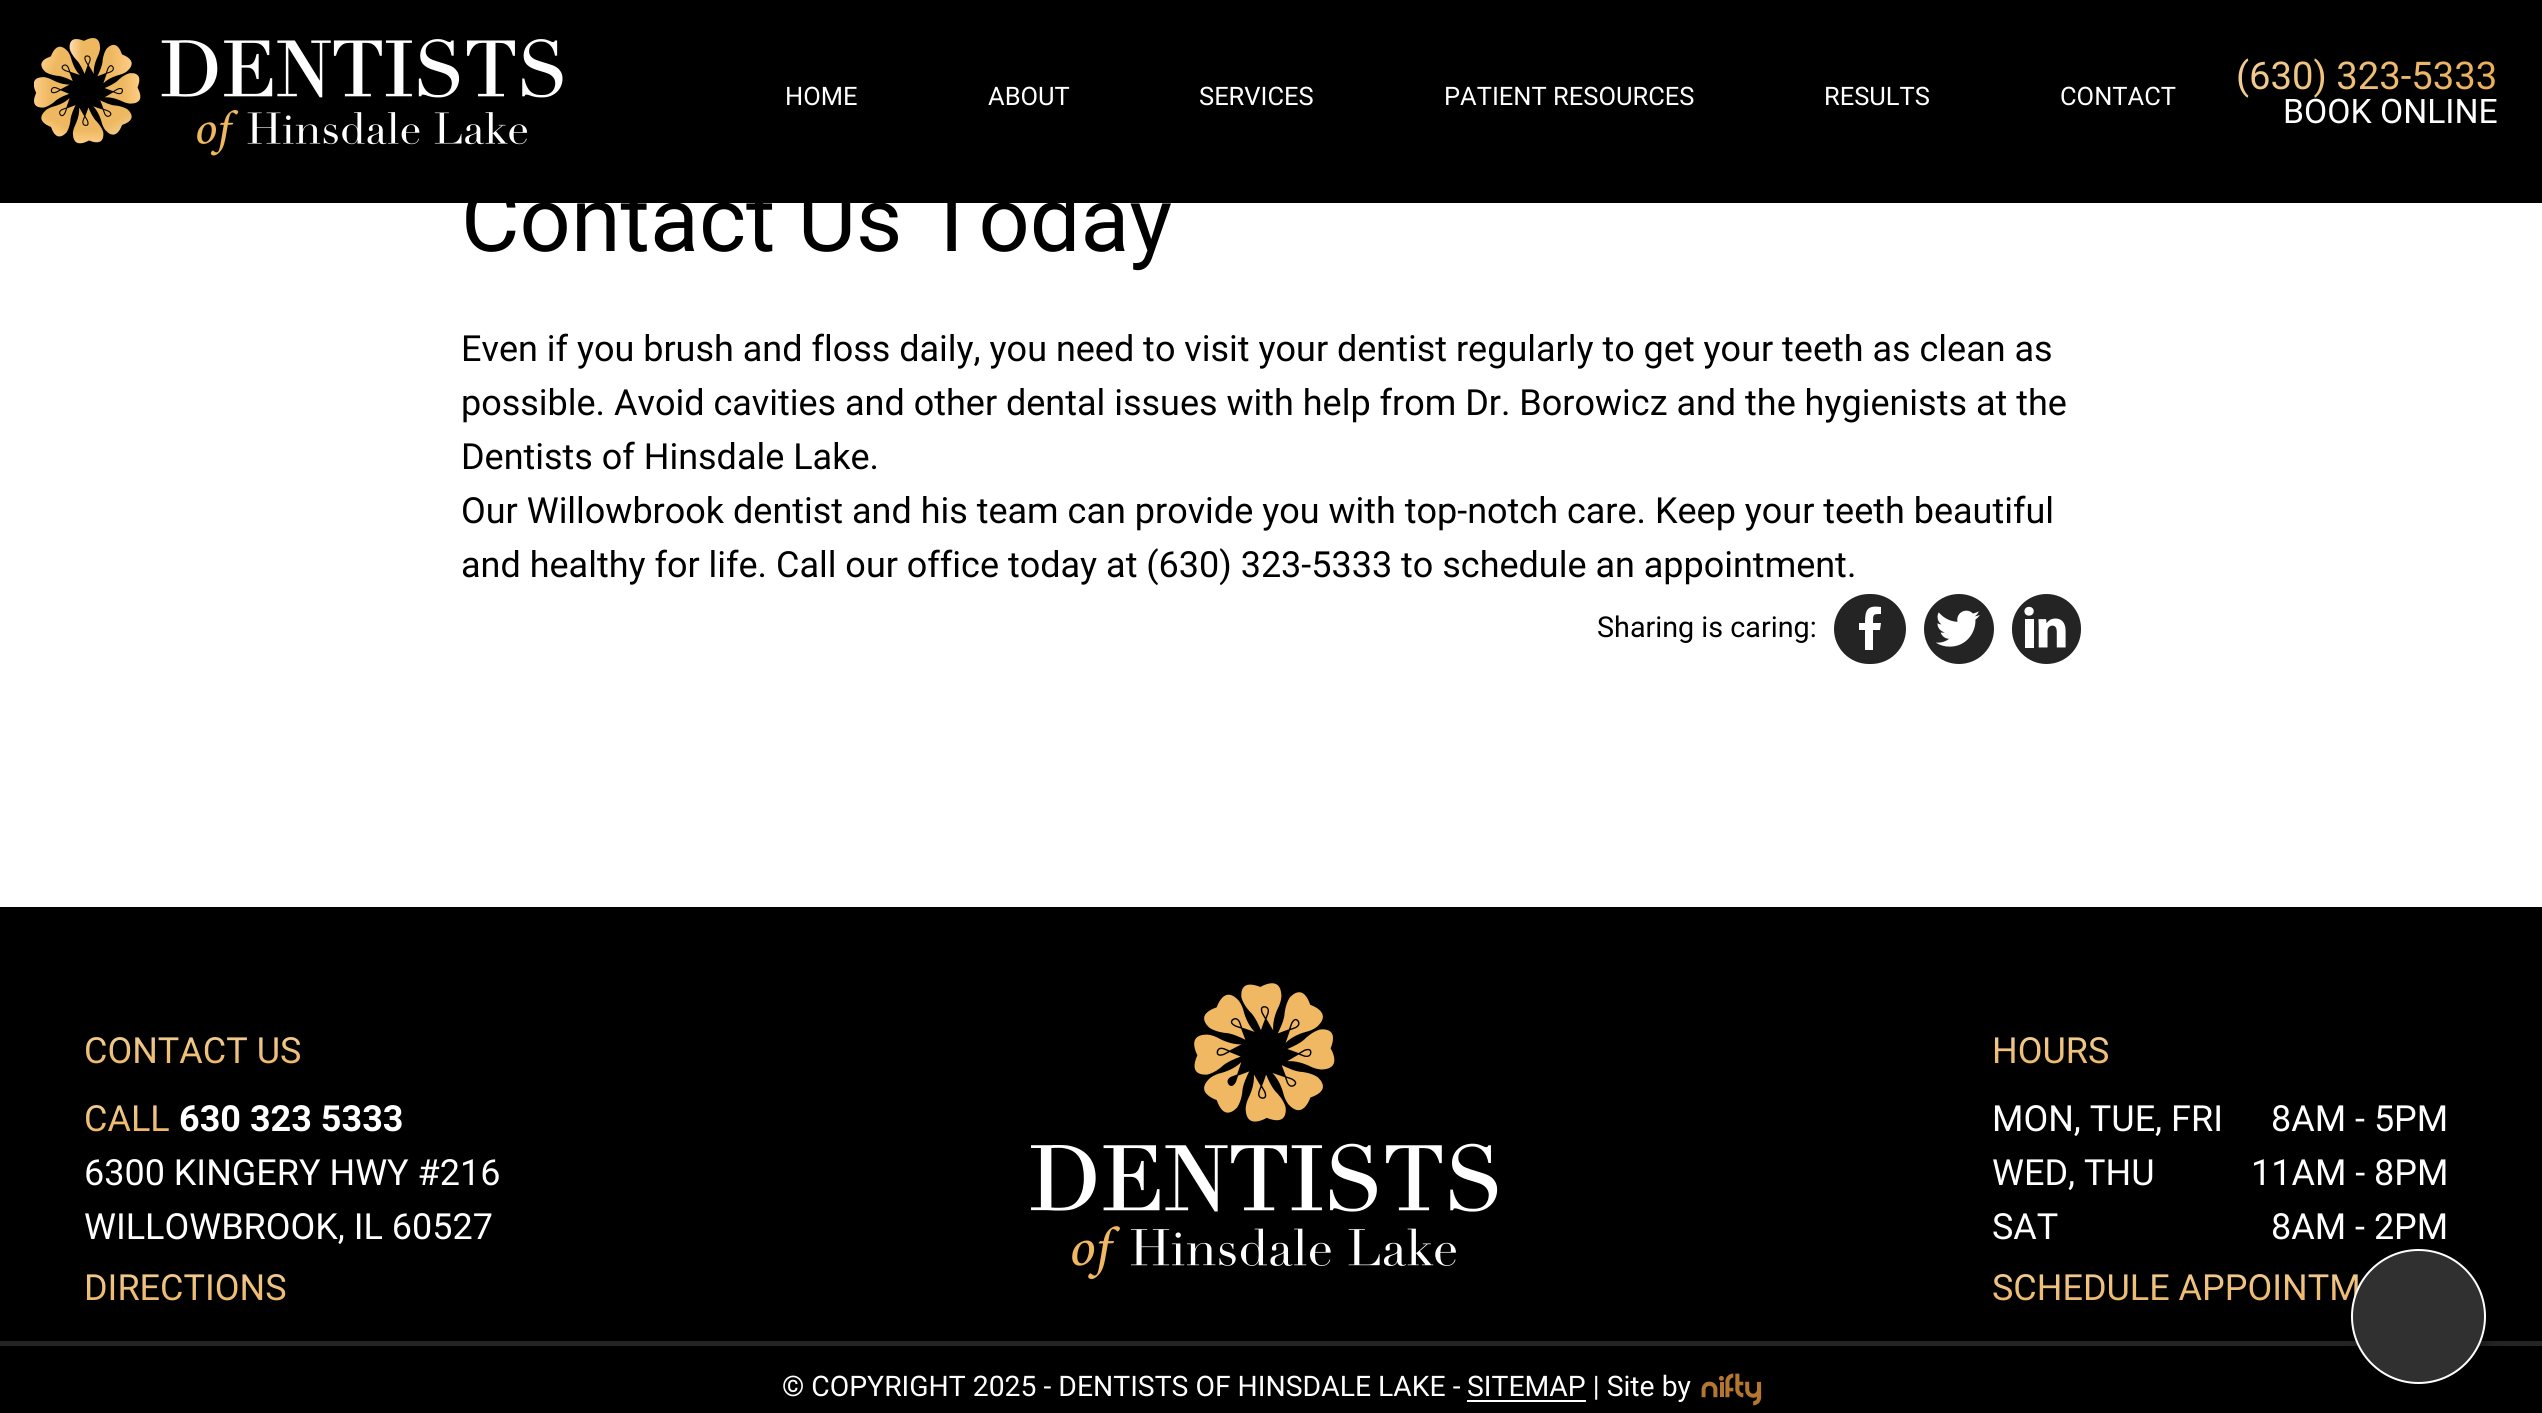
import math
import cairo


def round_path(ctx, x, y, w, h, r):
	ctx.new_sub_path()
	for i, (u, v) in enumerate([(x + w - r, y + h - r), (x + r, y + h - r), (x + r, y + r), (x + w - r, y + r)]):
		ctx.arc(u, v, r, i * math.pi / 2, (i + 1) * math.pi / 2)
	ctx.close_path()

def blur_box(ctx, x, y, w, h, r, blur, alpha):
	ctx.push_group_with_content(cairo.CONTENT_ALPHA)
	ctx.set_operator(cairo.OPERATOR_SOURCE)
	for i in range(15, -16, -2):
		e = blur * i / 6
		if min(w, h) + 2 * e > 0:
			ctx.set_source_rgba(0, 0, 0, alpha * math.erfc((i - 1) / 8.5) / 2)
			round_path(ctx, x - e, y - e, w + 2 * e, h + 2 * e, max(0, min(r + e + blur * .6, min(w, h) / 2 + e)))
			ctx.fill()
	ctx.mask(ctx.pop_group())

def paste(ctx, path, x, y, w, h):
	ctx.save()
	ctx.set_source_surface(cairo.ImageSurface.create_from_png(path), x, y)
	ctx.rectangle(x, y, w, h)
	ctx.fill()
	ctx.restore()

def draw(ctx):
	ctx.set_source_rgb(1, 1, 1)
	ctx.paint()
	ctx.set_source_rgb(0, 0, 0)
	ctx.rectangle(0, 0, 2542, 203)
	ctx.fill()
	paste(ctx, 'media/1.png', 34, 38, 529, 118)
	ctx.select_font_face('Roboto')
	ctx.set_font_size(25.5)
	ctx.set_source_rgb(1, 1, 1)
	for x, y, s in [
		(785, 105, 'HOME'),
		(988, 105, 'ABOUT'),
		(1199, 105, 'SERVICES'),
		(1444, 105, 'PATIENT RESOURCES'),
		(1824, 105, 'RESULTS'),
		(2060, 105, 'CONTACT'),
	]:
		ctx.move_to(x, y)
		ctx.show_text(s)
	ctx.set_font_size(38.25)
	gradient = cairo.LinearGradient(2236, 77, 2498, 76)
	gradient.add_color_stop_rgba(0, 0.945, 0.8, 0.573, 1)
	gradient.add_color_stop_rgba(1, 0.918, 0.682, 0.341, 1)
	ctx.set_source(gradient)
	ctx.move_to(2236, 89)
	ctx.show_text('(630) 323-5333')
	ctx.set_font_size(33.75)
	ctx.set_source_rgb(1, 1, 1)
	ctx.move_to(2283, 123)
	ctx.show_text('BOOK ONLINE')
	ctx.set_font_size(90)
	ctx.set_source_rgb(0, 0, 0)
	ctx.move_to(461, 251)
	ctx.show_text('Contact Us Today')
	ctx.set_font_size(36)
	for x, y, s in [
		(461, 361, 'Even if you brush and floss daily, you need to visit your dentist regularly to get your teeth as clean as'),
		(461, 415, 'possible. Avoid cavities and other dental issues with help from Dr. Borowicz and the hygienists at the'),
		(461, 469, 'Dentists of Hinsdale Lake.'),
		(461, 523, 'Our Willowbrook dentist and his team can provide you with top-notch care. Keep your teeth beautiful'),
		(461, 577, 'and healthy for life. Call our office today at (630) 323-5333 to schedule an appointment.'),
	]:
		ctx.move_to(x, y)
		ctx.show_text(s)
	ctx.set_font_size(28.75)
	ctx.move_to(1597, 637)
	ctx.show_text('Sharing is caring:')
	ctx.set_source_rgb(0.141, 0.141, 0.141)
	round_path(ctx, 1834, 594, 72, 70, 35)
	ctx.fill()
	ctx.set_source_rgb(1, 1, 1)
	ctx.new_path()
	ctx.move_to(1880, 630)
	ctx.line_to(1881, 623)
	ctx.line_to(1873, 623)
	ctx.curve_to(1873, 614, 1873, 614, 1881, 614)
	ctx.line_to(1881, 607)
	ctx.curve_to(1867, 605, 1865, 610, 1865, 623)
	ctx.line_to(1859, 623)
	ctx.line_to(1859, 630)
	ctx.line_to(1865, 630)
	ctx.line_to(1865, 650)
	ctx.line_to(1873, 650)
	ctx.line_to(1873, 630)
	ctx.close_path()
	ctx.fill()
	ctx.set_source_rgb(0.141, 0.141, 0.141)
	ctx.arc(1959, 629, 35, 0, 2 * math.pi)
	ctx.fill()
	paste(ctx, 'media/2.png', 1936, 610, 44, 37)
	round_path(ctx, 2012, 594, 69, 70, 34.5)
	ctx.fill()
	paste(ctx, 'media/3.png', 2024, 606, 42, 42)
	ctx.set_source_rgb(0, 0, 0)
	ctx.rectangle(0, 907, 2542, 506)
	ctx.fill()
	ctx.set_font_size(36)
	gradient = cairo.LinearGradient(309, 1030, 309, 1088)
	gradient.add_color_stop_rgba(0, 0.945, 0.812, 0.592, 1)
	gradient.add_color_stop_rgba(1, 0.914, 0.663, 0.314, 1)
	ctx.set_source(gradient)
	ctx.move_to(84, 1063)
	ctx.show_text('CONTACT US')
	gradient = cairo.LinearGradient(244, 1097, 244, 1153)
	gradient.add_color_stop_rgba(0, 0.945, 0.812, 0.592, 1)
	gradient.add_color_stop_rgba(1, 0.914, 0.663, 0.314, 1)
	ctx.set_source(gradient)
	ctx.move_to(84, 1131)
	ctx.show_text('CALL')
	ctx.select_font_face('Roboto', cairo.FONT_SLANT_NORMAL, cairo.FONT_WEIGHT_BOLD)
	ctx.set_source_rgb(1, 1, 1)
	ctx.move_to(179, 1131)
	ctx.show_text('630 323 5333')
	ctx.select_font_face('Roboto')
	ctx.move_to(84, 1185)
	ctx.show_text('6300 KINGERY HWY #216')
	ctx.move_to(84, 1239)
	ctx.show_text('WILLOWBROOK, IL 60527')
	gradient = cairo.LinearGradient(186, 1266, 186, 1321)
	gradient.add_color_stop_rgba(0, 0.945, 0.812, 0.592, 1)
	gradient.add_color_stop_rgba(1, 0.914, 0.663, 0.314, 1)
	ctx.set_source(gradient)
	ctx.move_to(84, 1300)
	ctx.show_text('DIRECTIONS')
	paste(ctx, 'media/4.png', 1031, 983, 467, 297)
	gradient = cairo.LinearGradient(2225, 1030, 2225, 1088)
	gradient.add_color_stop_rgba(0, 0.945, 0.812, 0.592, 1)
	gradient.add_color_stop_rgba(1, 0.914, 0.663, 0.314, 1)
	ctx.set_source(gradient)
	ctx.move_to(1992, 1063)
	ctx.show_text('HOURS')
	ctx.set_source_rgb(1, 1, 1)
	for x, y, s in [
		(1992, 1131, 'MON, TUE, FRI'),
		(2271, 1131, '8AM - 5PM'),
		(1992, 1185, 'WED, THU'),
		(2251, 1185, '11AM - 8PM'),
		(1992, 1239, 'SAT'),
		(2271, 1239, '8AM - 2PM'),
	]:
		ctx.move_to(x, y)
		ctx.show_text(s)
	gradient = cairo.LinearGradient(2211, 1266, 2211, 1321)
	gradient.add_color_stop_rgba(0, 0.945, 0.812, 0.592, 1)
	gradient.add_color_stop_rgba(1, 0.914, 0.663, 0.314, 1)
	ctx.set_source(gradient)
	ctx.move_to(1992, 1300)
	ctx.show_text('SCHEDULE APPOINTM')
	ctx.set_source_rgb(0.141, 0.141, 0.141)
	ctx.rectangle(0, 1341, 2542, 5)
	ctx.fill()
	ctx.set_font_size(28.35)
	ctx.set_source_rgb(1, 1, 1)
	ctx.move_to(782, 1396)
	ctx.show_text('© COPYRIGHT 2025 - DENTISTS OF HINSDALE LAKE -')
	ctx.rectangle(1467, 1400, 119, 2)
	ctx.fill()
	ctx.move_to(1467, 1396)
	ctx.show_text('SITEMAP | Site by')
	paste(ctx, 'media/5.png', 1701, 1373, 61, 33)
	ctx.set_source_rgb(0, 0, 0)
	blur_box(ctx, 2365, 1267, 117, 117, 58.5, 9, 0.75)
	ctx.set_source_rgb(0.188, 0.188, 0.188)
	ctx.arc(2418.5, 1316.5, 66.5, 0, 2 * math.pi)
	ctx.fill_preserve()
	ctx.set_source_rgb(1, 1, 1)
	ctx.stroke()


surface = cairo.ImageSurface(cairo.FORMAT_RGB24, 2542, 1413)
ctx = cairo.Context(surface)
options = cairo.FontOptions()
options.set_hint_metrics(cairo.HINT_METRICS_OFF)
options.set_hint_style(cairo.HINT_STYLE_NONE)
ctx.set_font_options(options)
ctx.set_miter_limit(4)
draw(ctx)
surface.write_to_png('image.png')
